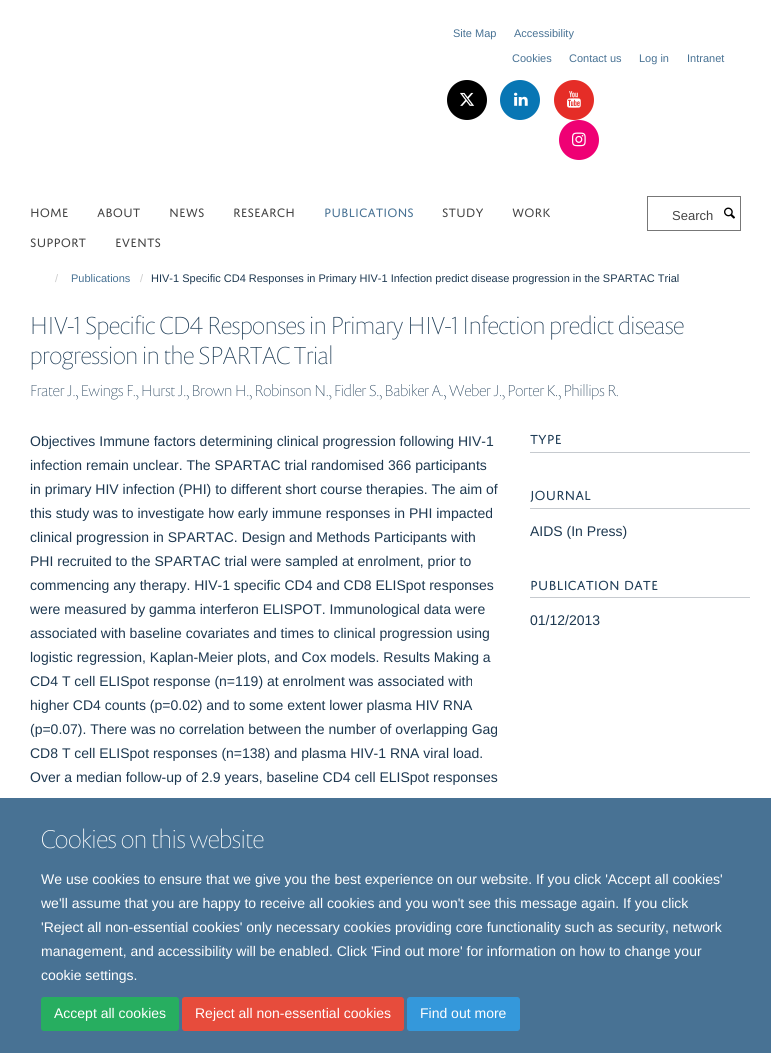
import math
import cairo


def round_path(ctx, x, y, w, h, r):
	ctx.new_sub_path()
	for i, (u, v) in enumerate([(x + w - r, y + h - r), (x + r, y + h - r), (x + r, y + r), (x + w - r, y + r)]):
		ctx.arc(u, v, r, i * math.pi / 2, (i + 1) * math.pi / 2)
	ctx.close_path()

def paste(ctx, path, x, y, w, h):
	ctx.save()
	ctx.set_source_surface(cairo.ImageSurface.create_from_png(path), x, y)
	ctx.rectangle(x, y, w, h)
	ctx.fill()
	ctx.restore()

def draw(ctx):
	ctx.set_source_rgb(1, 1, 1)
	ctx.paint()
	ctx.select_font_face('Liberation Sans')
	ctx.set_font_size(11)
	ctx.set_source_rgb(0.282, 0.447, 0.58)
	for x, y, s in [
		(453, 37, 'Site Map'),
		(514, 37, 'Accessibility'),
		(512, 62, 'Cookies'),
		(569, 62, 'Contact us'),
		(639, 62, 'Log in'),
		(687, 62, 'Intranet'),
	]:
		ctx.move_to(x, y)
		ctx.show_text(s)
	ctx.set_source_rgb(0, 0, 0)
	ctx.new_path()
	ctx.arc(467, 100, 20, 0, 2 * math.pi)
	ctx.fill()
	paste(ctx, 'media/1.png', 460, 92, 15, 14)
	ctx.set_source_rgb(0.035, 0.463, 0.706)
	ctx.arc(520, 100, 20, 0, 2 * math.pi)
	ctx.fill()
	paste(ctx, 'media/2.png', 514, 92, 14, 14)
	ctx.set_source_rgb(0.898, 0.176, 0.153)
	ctx.arc(574, 100, 20, 0, 2 * math.pi)
	ctx.fill()
	paste(ctx, 'media/3.png', 567, 91, 14, 17)
	ctx.set_source_rgb(0.937, 0, 0.455)
	ctx.arc(579, 140, 20, 0, 2 * math.pi)
	ctx.fill()
	paste(ctx, 'media/4.png', 572, 132, 14, 15)
	ctx.select_font_face('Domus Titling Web')
	ctx.set_font_size(13)
	ctx.set_source_rgb(0.267, 0.267, 0.267)
	for x, y, s in [
		(30, 217, 'HOME'),
		(97, 217, 'ABOUT'),
		(169, 217, 'NEWS'),
		(233, 217, 'RESEARCH'),
	]:
		ctx.move_to(x, y)
		ctx.show_text(s)
	ctx.set_source_rgb(0.282, 0.447, 0.58)
	ctx.move_to(324, 217)
	ctx.show_text('PUBLICATIONS')
	ctx.set_source_rgb(0.267, 0.267, 0.267)
	for x, y, s in [
		(442, 217, 'STUDY'),
		(512, 217, 'WORK'),
		(30, 247, 'SUPPORT'),
		(115, 247, 'EVENTS'),
	]:
		ctx.move_to(x, y)
		ctx.show_text(s)
	ctx.rectangle(647.5, 196.5, 93, 34)
	ctx.set_source_rgb(0.467, 0.467, 0.467)
	ctx.set_line_width(1)
	ctx.stroke()
	ctx.select_font_face('Liberation Sans')
	ctx.set_source_rgb(0.267, 0.267, 0.267)
	ctx.move_to(672, 220)
	ctx.show_text('Search')
	paste(ctx, 'media/5.png', 724, 207, 11, 12)
	ctx.set_font_size(11)
	ctx.set_source_rgb(0.8, 0.8, 0.8)
	ctx.move_to(55, 282)
	ctx.show_text('/')
	ctx.set_source_rgb(0.282, 0.447, 0.58)
	ctx.move_to(71, 282)
	ctx.show_text('Publications')
	ctx.set_source_rgb(0.8, 0.8, 0.8)
	ctx.move_to(140, 282)
	ctx.show_text('/')
	ctx.set_source_rgb(0.114, 0.22, 0.314)
	ctx.move_to(151, 282)
	ctx.show_text('HIV-1 Specific CD4 Responses in Primary HIV-1 Infection predict disease progression in the SPARTAC Trial')
	ctx.select_font_face('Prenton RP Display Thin')
	ctx.set_font_size(25)
	ctx.set_source_rgb(0.125, 0.243, 0.345)
	ctx.move_to(30, 334)
	ctx.show_text('HIV-1 Specific CD4 Responses in Primary HIV-1 Infection predict disease')
	ctx.move_to(30, 364)
	ctx.show_text('progression in the SPARTAC Trial')
	ctx.set_font_size(16)
	ctx.move_to(30, 396)
	ctx.show_text('Frater J., Ewings F., Hurst J., Brown H., Robinson N., Fidler S., Babiker A., Weber J., Porter K., Phillips R.')
	ctx.select_font_face('Liberation Sans')
	ctx.set_font_size(14)
	ctx.set_source_rgb(0.114, 0.22, 0.314)
	for x, y, s in [
		(30, 446, 'Objectives Immune factors determining clinical progression following HIV-1'),
		(30, 470, 'infection remain unclear. The SPARTAC trial randomised 366 participants'),
		(30, 494, 'in primary HIV infection (PHI) to different short course therapies. The aim of'),
		(30, 518, 'this study was to investigate how early immune responses in PHI impacted'),
		(30, 542, 'clinical progression in SPARTAC. Design and Methods Participants with'),
		(30, 566, 'PHI recruited to the SPARTAC trial were sampled at enrolment, prior to'),
		(30, 590, 'commencing any therapy. HIV-1 specific CD4 and CD8 ELISpot responses'),
		(30, 614, 'were measured by gamma interferon ELISPOT. Immunological data were'),
		(30, 638, 'associated with baseline covariates and times to clinical progression using'),
		(30, 662, 'logistic regression, Kaplan-Meier plots, and Cox models. Results Making a'),
		(30, 686, 'CD4 T cell ELISpot response (n=119) at enrolment was associated with'),
		(30, 710, 'higher CD4 counts (p=0.02) and to some extent lower plasma HIV RNA'),
		(30, 734, '(p=0.07). There was no correlation between the number of overlapping Gag'),
		(30, 758, 'CD8 T cell ELISpot responses (n=138) and plasma HIV-1 RNA viral load.'),
		(30, 782, 'Over a median follow-up of 2.9 years, baseline CD4 cell ELISpot responses'),
	]:
		ctx.move_to(x, y)
		ctx.show_text(s)
	ctx.set_source_rgb(0.776, 0.792, 0.812)
	ctx.rectangle(530, 452, 220, 1)
	ctx.fill()
	ctx.select_font_face('Domus Titling Web')
	ctx.set_source_rgb(0.125, 0.243, 0.345)
	ctx.move_to(530, 444)
	ctx.show_text('TYPE')
	ctx.set_source_rgb(0.776, 0.792, 0.812)
	ctx.rectangle(530, 508, 220, 1)
	ctx.fill()
	ctx.set_source_rgb(0.125, 0.243, 0.345)
	ctx.move_to(530, 500)
	ctx.show_text('JOURNAL')
	ctx.select_font_face('Liberation Sans')
	ctx.set_source_rgb(0.114, 0.22, 0.314)
	ctx.move_to(530, 536)
	ctx.show_text('AIDS (In Press)')
	ctx.set_source_rgb(0.776, 0.792, 0.812)
	ctx.rectangle(530, 597, 220, 1)
	ctx.fill()
	ctx.select_font_face('Domus Titling Web')
	ctx.set_source_rgb(0.125, 0.243, 0.345)
	ctx.move_to(530, 590)
	ctx.show_text('PUBLICATION DATE')
	ctx.select_font_face('Liberation Sans')
	ctx.set_source_rgb(0.114, 0.22, 0.314)
	ctx.move_to(530, 625)
	ctx.show_text('01/12/2013')
	ctx.set_source_rgb(0.282, 0.447, 0.58)
	ctx.rectangle(0, 798, 771, 255)
	ctx.fill()
	ctx.select_font_face('Prenton RP Display Thin')
	ctx.set_font_size(26)
	ctx.set_source_rgb(1, 1, 1)
	ctx.move_to(41, 848)
	ctx.show_text('Cookies on this website')
	ctx.select_font_face('Liberation Sans')
	ctx.set_font_size(14)
	for x, y, s in [
		(41, 884, 'We use cookies to ensure that we give you the best experience on our website. If you click \'Accept all cookies\''),
		(41, 908, 'we\'ll assume that you are happy to receive all cookies and you won\'t see this message again. If you click'),
		(41, 932, '\'Reject all non-essential cookies\' only necessary cookies providing core functionality such as security, network'),
		(41, 956, 'management, and accessibility will be enabled. Click \'Find out more\' for information on how to change your'),
		(41, 980, 'cookie settings.'),
	]:
		ctx.move_to(x, y)
		ctx.show_text(s)
	ctx.set_source_rgb(0.153, 0.682, 0.376)
	round_path(ctx, 41.5, 997.5, 137, 33, 2.5)
	ctx.fill_preserve()
	ctx.stroke()
	ctx.set_source_rgb(1, 1, 1)
	ctx.move_to(54, 1018)
	ctx.show_text('Accept all cookies')
	ctx.set_source_rgb(0.906, 0.298, 0.235)
	round_path(ctx, 182.5, 997.5, 221, 33, 2.5)
	ctx.fill_preserve()
	ctx.stroke()
	ctx.set_source_rgb(1, 1, 1)
	ctx.move_to(195, 1018)
	ctx.show_text('Reject all non-essential cookies')
	ctx.set_source_rgb(0.204, 0.596, 0.859)
	round_path(ctx, 407.5, 997.5, 112, 33, 2.5)
	ctx.fill_preserve()
	ctx.stroke()
	ctx.set_source_rgb(1, 1, 1)
	ctx.move_to(420, 1018)
	ctx.show_text('Find out more')


surface = cairo.ImageSurface(cairo.FORMAT_RGB24, 771, 1053)
ctx = cairo.Context(surface)
options = cairo.FontOptions()
options.set_hint_metrics(cairo.HINT_METRICS_OFF)
options.set_hint_style(cairo.HINT_STYLE_NONE)
ctx.set_font_options(options)
ctx.set_miter_limit(4)
draw(ctx)
surface.write_to_png('image.png')
